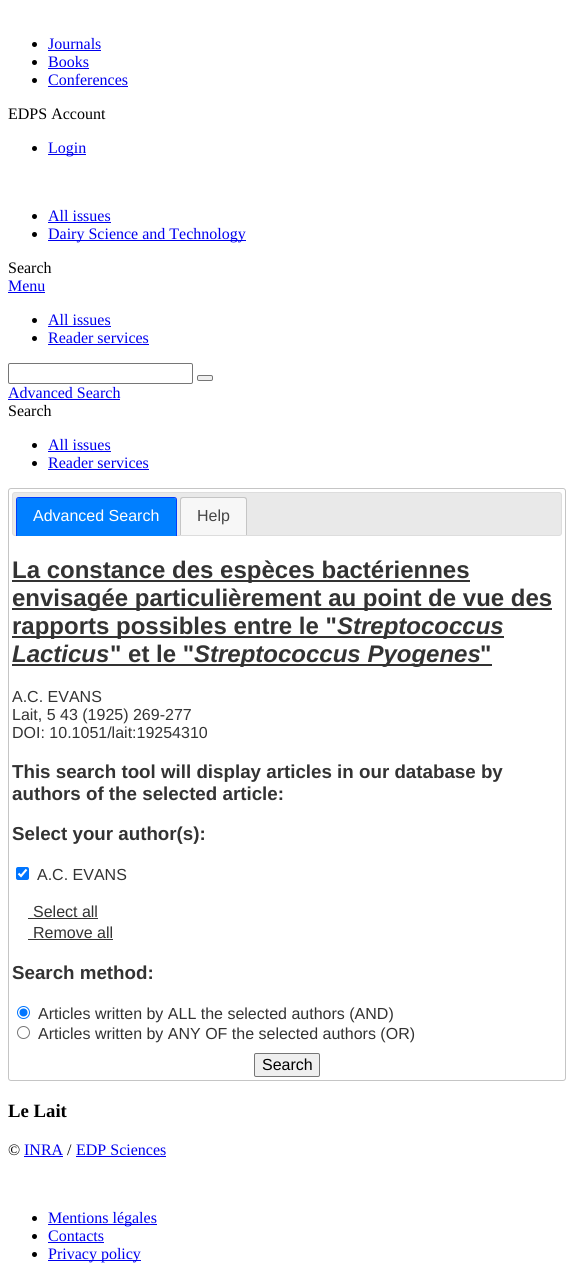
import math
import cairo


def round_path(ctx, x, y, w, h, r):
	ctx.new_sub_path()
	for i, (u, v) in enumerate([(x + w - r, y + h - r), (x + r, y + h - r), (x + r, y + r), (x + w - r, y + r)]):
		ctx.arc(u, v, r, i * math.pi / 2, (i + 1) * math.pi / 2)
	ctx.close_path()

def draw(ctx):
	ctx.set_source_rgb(1, 1, 1)
	ctx.paint()
	ctx.set_source_rgb(0, 0, 0)
	ctx.arc(34.5, 44.5, 2.5, 0, 2 * math.pi)
	ctx.fill()
	ctx.select_font_face('Liberation Serif')
	ctx.set_font_size(16)
	ctx.set_source_rgb(0, 0, 0.933)
	ctx.move_to(48, 49)
	ctx.show_text('Journals')
	ctx.rectangle(48, 50, 53, 1)
	ctx.fill()
	ctx.set_source_rgb(0, 0, 0)
	ctx.arc(34.5, 62.5, 2.5, 0, 2 * math.pi)
	ctx.fill()
	ctx.set_source_rgb(0, 0, 0.933)
	ctx.move_to(48, 67)
	ctx.show_text('Books')
	ctx.rectangle(48, 68, 41, 1)
	ctx.fill()
	ctx.set_source_rgb(0, 0, 0)
	ctx.arc(34.5, 80.5, 2.5, 0, 2 * math.pi)
	ctx.fill()
	ctx.set_source_rgb(0, 0, 0.933)
	ctx.move_to(48, 85)
	ctx.show_text('Conferences')
	ctx.rectangle(48, 86, 80, 1)
	ctx.fill()
	ctx.set_source_rgb(0, 0, 0)
	ctx.move_to(8, 119)
	ctx.show_text('EDPS Account')
	ctx.new_path()
	ctx.arc(34.5, 148.5, 2.5, 0, 2 * math.pi)
	ctx.fill()
	ctx.set_source_rgb(0, 0, 0.933)
	ctx.rectangle(48, 154, 38, 1)
	ctx.fill()
	ctx.move_to(48, 153)
	ctx.show_text('Login')
	ctx.set_source_rgb(0, 0, 0)
	ctx.new_path()
	ctx.arc(34.5, 216.5, 2.5, 0, 2 * math.pi)
	ctx.fill()
	ctx.set_source_rgb(0, 0, 0.933)
	ctx.move_to(48, 221)
	ctx.show_text('All issues')
	ctx.rectangle(48, 222, 63, 1)
	ctx.fill()
	ctx.set_source_rgb(0, 0, 0)
	ctx.arc(34.5, 234.5, 2.5, 0, 2 * math.pi)
	ctx.fill()
	ctx.set_source_rgb(0, 0, 0.933)
	ctx.rectangle(48, 240, 198, 1)
	ctx.fill()
	ctx.move_to(48, 239)
	ctx.show_text('Dairy Science and Technology')
	ctx.set_source_rgb(0, 0, 0)
	ctx.move_to(8, 273)
	ctx.show_text('Search')
	ctx.set_source_rgb(0, 0, 0.933)
	ctx.move_to(8, 291)
	ctx.show_text('Menu')
	ctx.rectangle(8, 292, 37, 1)
	ctx.fill()
	ctx.set_source_rgb(0, 0, 0)
	ctx.arc(34.5, 320.5, 2.5, 0, 2 * math.pi)
	ctx.fill()
	ctx.set_source_rgb(0, 0, 0.933)
	ctx.move_to(48, 325)
	ctx.show_text('All issues')
	ctx.rectangle(48, 326, 63, 1)
	ctx.fill()
	ctx.set_source_rgb(0, 0, 0)
	ctx.arc(34.5, 338.5, 2.5, 0, 2 * math.pi)
	ctx.fill()
	ctx.set_source_rgb(0, 0, 0.933)
	ctx.move_to(48, 343)
	ctx.show_text('Reader services')
	ctx.rectangle(48, 344, 101, 1)
	ctx.fill()
	round_path(ctx, 8.5, 363.5, 184, 20, 1.5)
	ctx.set_source_rgb(0.463, 0.463, 0.463)
	ctx.set_line_width(1)
	ctx.stroke()
	ctx.set_source_rgb(0.937, 0.937, 0.937)
	round_path(ctx, 197.5, 375.5, 15, 5, 1.5)
	ctx.fill_preserve()
	ctx.set_source_rgb(0.463, 0.463, 0.463)
	ctx.stroke()
	ctx.set_source_rgb(0, 0, 0.933)
	ctx.move_to(8, 398)
	ctx.show_text('Advanced Search')
	ctx.rectangle(8, 399, 112, 1)
	ctx.fill()
	ctx.set_source_rgb(0, 0, 0)
	ctx.move_to(8, 416)
	ctx.show_text('Search')
	ctx.new_path()
	ctx.arc(34.5, 445.5, 2.5, 0, 2 * math.pi)
	ctx.fill()
	ctx.set_source_rgb(0, 0, 0.933)
	ctx.move_to(48, 450)
	ctx.show_text('All issues')
	ctx.rectangle(48, 451, 63, 1)
	ctx.fill()
	ctx.set_source_rgb(0, 0, 0)
	ctx.arc(34.5, 463.5, 2.5, 0, 2 * math.pi)
	ctx.fill()
	ctx.set_source_rgb(0, 0, 0.933)
	ctx.move_to(48, 468)
	ctx.show_text('Reader services')
	ctx.rectangle(48, 469, 101, 1)
	ctx.fill()
	round_path(ctx, 8.5, 488.5, 557, 592, 2.5)
	ctx.set_source_rgb(0.773, 0.773, 0.773)
	ctx.stroke()
	ctx.set_source_rgb(0.914, 0.914, 0.914)
	round_path(ctx, 12.5, 492.5, 549, 43, 2.5)
	ctx.fill_preserve()
	ctx.set_source_rgb(0.867, 0.867, 0.867)
	ctx.stroke()
	ctx.set_source_rgb(0, 0.498, 1)
	ctx.new_path()
	ctx.move_to(19, 498)
	ctx.line_to(174, 498)
	ctx.curve_to(175, 498, 176, 499, 176, 500)
	ctx.line_to(176, 536)
	ctx.line_to(17, 536)
	ctx.line_to(17, 500)
	ctx.curve_to(17, 499, 18, 498, 19, 498)
	ctx.close_path()
	ctx.fill()
	ctx.set_source_rgb(0, 0.243, 1)
	ctx.set_fill_rule(cairo.FILL_RULE_EVEN_ODD)
	ctx.new_path()
	ctx.move_to(19, 497)
	ctx.line_to(174, 497)
	ctx.curve_to(176, 497, 177, 498, 177, 500)
	ctx.line_to(177, 536)
	ctx.line_to(16, 536)
	ctx.line_to(16, 500)
	ctx.curve_to(16, 498, 17, 497, 19, 497)
	ctx.close_path()
	ctx.move_to(19, 498)
	ctx.line_to(174, 498)
	ctx.curve_to(175, 498, 176, 499, 176, 500)
	ctx.line_to(176, 536)
	ctx.line_to(17, 536)
	ctx.line_to(17, 500)
	ctx.curve_to(17, 499, 18, 498, 19, 498)
	ctx.close_path()
	ctx.fill()
	ctx.select_font_face('Liberation Sans')
	ctx.set_source_rgb(1, 1, 1)
	ctx.move_to(33, 521)
	ctx.show_text('Advanced Search')
	ctx.set_source_rgb(0.965, 0.965, 0.965)
	ctx.new_path()
	ctx.move_to(183, 498)
	ctx.line_to(244, 498)
	ctx.curve_to(245, 498, 246, 499, 246, 500)
	ctx.line_to(246, 535)
	ctx.line_to(181, 535)
	ctx.line_to(181, 500)
	ctx.curve_to(181, 499, 182, 498, 183, 498)
	ctx.close_path()
	ctx.fill()
	ctx.set_source_rgb(0.773, 0.773, 0.773)
	ctx.new_path()
	ctx.move_to(183, 497)
	ctx.line_to(244, 497)
	ctx.curve_to(246, 497, 247, 498, 247, 500)
	ctx.line_to(247, 535)
	ctx.line_to(180, 535)
	ctx.line_to(180, 500)
	ctx.curve_to(180, 498, 181, 497, 183, 497)
	ctx.close_path()
	ctx.move_to(183, 498)
	ctx.line_to(244, 498)
	ctx.curve_to(245, 498, 246, 499, 246, 500)
	ctx.line_to(246, 535)
	ctx.line_to(181, 535)
	ctx.line_to(181, 500)
	ctx.curve_to(181, 499, 182, 498, 183, 498)
	ctx.close_path()
	ctx.fill()
	ctx.set_source_rgb(0.271, 0.271, 0.271)
	ctx.move_to(197, 521)
	ctx.show_text('Help')
	ctx.set_source_rgb(0.2, 0.2, 0.2)
	ctx.rectangle(12, 580, 458, 2)
	ctx.fill()
	ctx.select_font_face('Liberation Sans', cairo.FONT_SLANT_NORMAL, cairo.FONT_WEIGHT_BOLD)
	ctx.set_font_size(24)
	ctx.move_to(12, 578)
	ctx.show_text('La constance des espèces bactériennes')
	ctx.rectangle(12, 608, 540, 2)
	ctx.fill()
	ctx.move_to(12, 606)
	ctx.show_text('envisagée particulièrement au point de vue des')
	ctx.rectangle(12, 636, 492, 2)
	ctx.fill()
	ctx.move_to(12, 634)
	ctx.show_text('rapports possibles entre le "')
	ctx.select_font_face('Liberation Sans', cairo.FONT_SLANT_ITALIC, cairo.FONT_WEIGHT_BOLD)
	ctx.move_to(337, 634)
	ctx.show_text('Streptococcus')
	ctx.move_to(12, 662)
	ctx.show_text('Lacticus')
	ctx.select_font_face('Liberation Sans', cairo.FONT_SLANT_NORMAL, cairo.FONT_WEIGHT_BOLD)
	ctx.move_to(110, 662)
	ctx.show_text('" et le "')
	ctx.rectangle(12, 664, 480, 2)
	ctx.fill()
	ctx.select_font_face('Liberation Sans', cairo.FONT_SLANT_ITALIC, cairo.FONT_WEIGHT_BOLD)
	ctx.move_to(194, 662)
	ctx.show_text('Streptococcus Pyogenes')
	ctx.select_font_face('Liberation Sans', cairo.FONT_SLANT_NORMAL, cairo.FONT_WEIGHT_BOLD)
	ctx.move_to(480, 662)
	ctx.show_text('"')
	ctx.select_font_face('Liberation Sans')
	ctx.set_font_size(16)
	for x, y, s in [
		(12, 702, 'A.C. EVANS'),
		(12, 720, 'Lait, 5 43 (1925) 269-277'),
		(12, 738, 'DOI: 10.1051/lait:19254310'),
	]:
		ctx.move_to(x, y)
		ctx.show_text(s)
	ctx.select_font_face('Liberation Sans', cairo.FONT_SLANT_NORMAL, cairo.FONT_WEIGHT_BOLD)
	ctx.set_font_size(18.75)
	for x, y, s in [
		(12, 778, 'This search tool will display articles in our database by'),
		(12, 800, 'authors of the selected article:'),
		(12, 840, 'Select your author(s):'),
	]:
		ctx.move_to(x, y)
		ctx.show_text(s)
	ctx.set_source_rgb(0, 0.459, 1)
	round_path(ctx, 16, 867, 13, 13, 2)
	ctx.fill()
	ctx.new_path()
	ctx.move_to(18.5, 873.5)
	ctx.line_to(21, 876)
	ctx.line_to(26.5, 869.5)
	ctx.set_source_rgb(1, 1, 1)
	ctx.set_line_width(2.1)
	ctx.stroke()
	ctx.select_font_face('Liberation Sans')
	ctx.set_font_size(16)
	ctx.set_source_rgb(0.2, 0.2, 0.2)
	ctx.move_to(37, 880)
	ctx.show_text('A.C. EVANS')
	ctx.move_to(33, 917)
	ctx.show_text('Select all')
	ctx.rectangle(28, 918, 70, 1)
	ctx.fill()
	ctx.move_to(33, 938)
	ctx.show_text('Remove all')
	ctx.rectangle(28, 939, 85, 1)
	ctx.fill()
	ctx.select_font_face('Liberation Sans', cairo.FONT_SLANT_NORMAL, cairo.FONT_WEIGHT_BOLD)
	ctx.set_font_size(18.75)
	ctx.move_to(12, 979)
	ctx.show_text('Search method:')
	ctx.new_path()
	ctx.arc(23.5, 1012.5, 6, 0, 2 * math.pi)
	ctx.set_source_rgb(0, 0.459, 1)
	ctx.set_line_width(1)
	ctx.stroke()
	ctx.arc(23.5, 1012.5, 4, 0, 2 * math.pi)
	ctx.fill()
	ctx.select_font_face('Liberation Sans')
	ctx.set_font_size(16)
	ctx.set_source_rgb(0.2, 0.2, 0.2)
	ctx.move_to(38, 1019)
	ctx.show_text('Articles written by ALL the selected authors (AND)')
	ctx.new_path()
	ctx.arc(23.5, 1032.5, 6, 0, 2 * math.pi)
	ctx.set_source_rgb(0.463, 0.463, 0.463)
	ctx.stroke()
	ctx.set_source_rgb(0.2, 0.2, 0.2)
	ctx.move_to(38, 1039)
	ctx.show_text('Articles written by ANY OF the selected authors (OR)')
	ctx.set_source_rgb(0.937, 0.937, 0.937)
	round_path(ctx, 254.5, 1053.5, 65, 23, 1.5)
	ctx.fill_preserve()
	ctx.set_source_rgb(0.463, 0.463, 0.463)
	ctx.stroke()
	ctx.set_source_rgb(0, 0, 0)
	ctx.move_to(262, 1070)
	ctx.show_text('Search')
	ctx.select_font_face('Liberation Serif', cairo.FONT_SLANT_NORMAL, cairo.FONT_WEIGHT_BOLD)
	ctx.set_font_size(18.75)
	ctx.move_to(8, 1117)
	ctx.show_text('Le Lait')
	ctx.select_font_face('Liberation Serif')
	ctx.set_font_size(16)
	ctx.move_to(8, 1155)
	ctx.show_text('©')
	ctx.set_source_rgb(0, 0, 0.933)
	ctx.move_to(24, 1155)
	ctx.show_text('INRA')
	ctx.rectangle(24, 1156, 39, 1)
	ctx.fill()
	ctx.set_source_rgb(0, 0, 0)
	ctx.move_to(67, 1155)
	ctx.show_text('/')
	ctx.set_source_rgb(0, 0, 0.933)
	ctx.move_to(76, 1155)
	ctx.show_text('EDP Sciences')
	ctx.rectangle(76, 1156, 90, 1)
	ctx.fill()
	ctx.set_source_rgb(0, 0, 0)
	ctx.arc(34.5, 1218.5, 2.5, 0, 2 * math.pi)
	ctx.fill()
	ctx.set_source_rgb(0, 0, 0.933)
	ctx.rectangle(48, 1224, 109, 1)
	ctx.fill()
	ctx.move_to(48, 1223)
	ctx.show_text('Mentions légales')
	ctx.set_source_rgb(0, 0, 0)
	ctx.new_path()
	ctx.arc(34.5, 1236.5, 2.5, 0, 2 * math.pi)
	ctx.fill()
	ctx.set_source_rgb(0, 0, 0.933)
	ctx.move_to(48, 1241)
	ctx.show_text('Contacts')
	ctx.rectangle(48, 1242, 56, 1)
	ctx.fill()
	ctx.set_source_rgb(0, 0, 0)
	ctx.arc(34.5, 1254.5, 2.5, 0, 2 * math.pi)
	ctx.fill()
	ctx.set_source_rgb(0, 0, 0.933)
	ctx.rectangle(48, 1260, 93, 1)
	ctx.fill()
	ctx.move_to(48, 1259)
	ctx.show_text('Privacy policy')


surface = cairo.ImageSurface(cairo.FORMAT_RGB24, 574, 1265)
ctx = cairo.Context(surface)
options = cairo.FontOptions()
options.set_hint_metrics(cairo.HINT_METRICS_OFF)
options.set_hint_style(cairo.HINT_STYLE_NONE)
ctx.set_font_options(options)
ctx.set_miter_limit(4)
draw(ctx)
surface.write_to_png('image.png')
